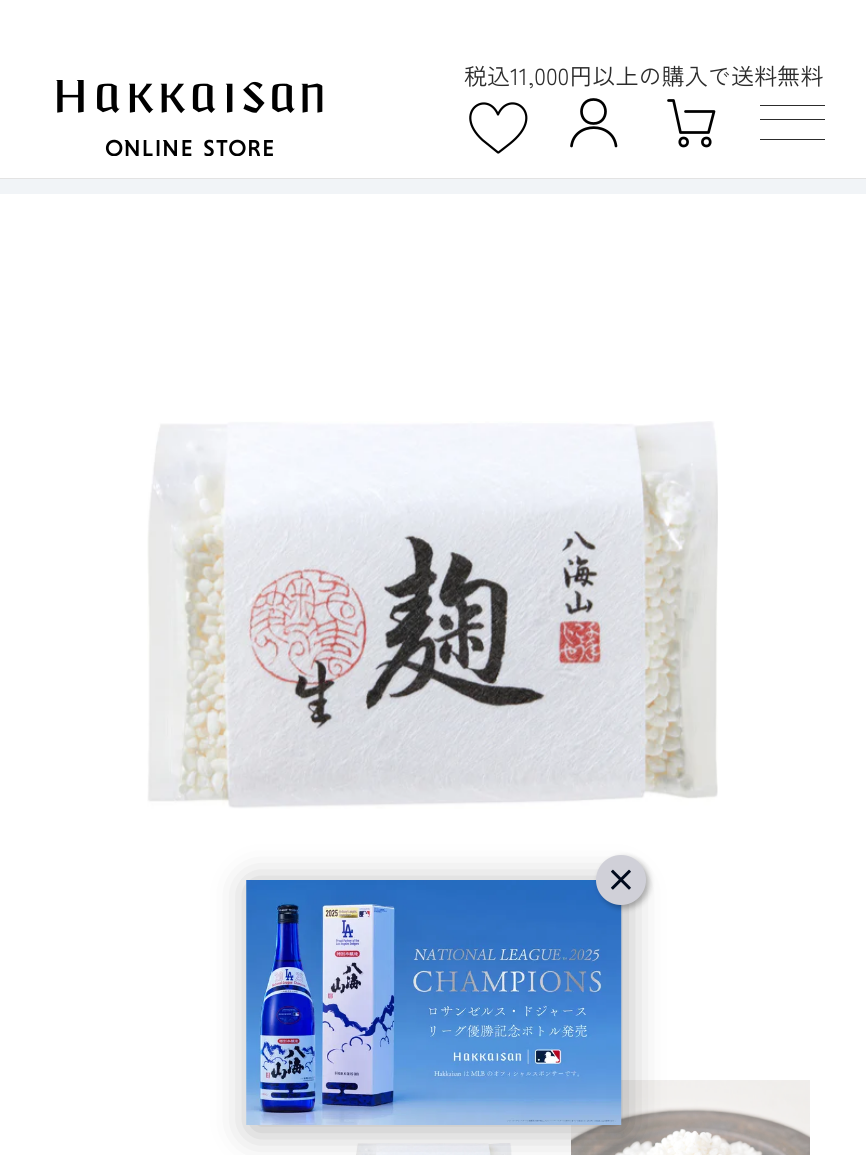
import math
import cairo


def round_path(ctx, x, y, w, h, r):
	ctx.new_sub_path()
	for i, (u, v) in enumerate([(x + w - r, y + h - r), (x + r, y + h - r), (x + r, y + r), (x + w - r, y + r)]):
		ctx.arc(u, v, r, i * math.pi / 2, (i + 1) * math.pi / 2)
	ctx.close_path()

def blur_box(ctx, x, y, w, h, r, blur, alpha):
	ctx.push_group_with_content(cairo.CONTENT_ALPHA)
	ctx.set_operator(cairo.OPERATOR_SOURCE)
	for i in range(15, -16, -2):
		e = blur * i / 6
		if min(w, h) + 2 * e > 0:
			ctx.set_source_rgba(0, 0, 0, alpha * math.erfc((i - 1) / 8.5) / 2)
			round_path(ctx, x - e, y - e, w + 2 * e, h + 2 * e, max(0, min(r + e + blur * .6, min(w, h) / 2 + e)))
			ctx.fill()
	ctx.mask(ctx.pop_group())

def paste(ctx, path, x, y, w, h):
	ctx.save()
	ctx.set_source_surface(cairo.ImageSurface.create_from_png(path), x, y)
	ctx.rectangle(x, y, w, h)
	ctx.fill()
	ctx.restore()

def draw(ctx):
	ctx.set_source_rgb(1, 1, 1)
	ctx.paint()
	ctx.set_source_rgb(0.89, 0.89, 0.89)
	ctx.rectangle(0, 178, 866, 1)
	ctx.fill()
	ctx.select_font_face('Zen Kaku Gothic New')
	ctx.set_font_size(23.1)
	ctx.set_source_rgb(0.173, 0.173, 0.173)
	ctx.move_to(464, 85)
	ctx.show_text('税込11,000円以上の購入で送料無料')
	ctx.new_path()
	ctx.move_to(498, 152.5)
	ctx.line_to(498.5, 152.5)
	ctx.curve_to(506, 146.5, 514.5, 141, 520.5, 133)
	ctx.curve_to(539, 108.5, 508.5, 91, 498, 114.5)
	ctx.curve_to(487, 89, 452, 112, 482.5, 140)
	ctx.close_path()
	ctx.set_source_rgb(0, 0, 0)
	ctx.set_line_width(2.2)
	ctx.set_line_cap(cairo.LINE_CAP_ROUND)
	ctx.set_line_join(cairo.LINE_JOIN_ROUND)
	ctx.stroke()
	ctx.new_path()
	ctx.move_to(593.5, 123.5)
	ctx.curve_to(609.5, 123.5, 609.5, 99.5, 593.5, 99.5)
	ctx.curve_to(577.5, 99.5, 577.5, 123.5, 593.5, 123.5)
	ctx.close_path()
	ctx.move_to(616, 146)
	ctx.curve_to(613, 121.5, 574.5, 121.5, 571.5, 146)
	ctx.set_line_width(2.7)
	ctx.stroke()
	ctx.new_path()
	ctx.move_to(668.5, 100.5)
	ctx.line_to(673.5, 100.5)
	ctx.line_to(680.5, 132.5)
	ctx.line_to(708.5, 132.5)
	ctx.line_to(714, 111.5)
	ctx.line_to(685.5, 111.5)
	ctx.move_to(683.5, 146)
	ctx.curve_to(689, 146, 689, 138, 683.5, 138)
	ctx.curve_to(678.5, 138, 678.5, 146, 683.5, 146)
	ctx.close_path()
	ctx.move_to(706.5, 146)
	ctx.curve_to(711.5, 146, 711.5, 138, 706.5, 138)
	ctx.curve_to(701, 138, 701, 146, 706.5, 146)
	ctx.close_path()
	ctx.stroke()
	ctx.set_source_rgb(0.173, 0.173, 0.173)
	ctx.rectangle(760, 105, 65, 1)
	ctx.rectangle(760, 119, 65, 1)
	ctx.rectangle(760, 139, 65, 1)
	ctx.fill()
	paste(ctx, 'media/1.png', 56, 80, 267, 76)
	ctx.set_source_rgb(0.945, 0.957, 0.965)
	ctx.rectangle(0, 179, 866, 15)
	ctx.fill()
	paste(ctx, 'media/2.png', 147, 421, 571, 388)
	paste(ctx, 'media/3.png', 356, 1143, 156, 12)
	paste(ctx, 'media/4.png', 571, 1080, 239, 75)
	ctx.set_source_rgb(0, 0, 0)
	blur_box(ctx, 251, 885, 375, 245, 0, 19, 0.3)
	paste(ctx, 'media/5.png', 246, 880, 376, 245)
	blur_box(ctx, 599, 858, 50, 50, 25, 3, 0.3)
	ctx.set_source_rgb(0.816, 0.816, 0.847)
	ctx.arc(621, 880, 25, 0, 2 * math.pi)
	ctx.fill()
	paste(ctx, 'media/6.png', 611, 869, 20, 21)


surface = cairo.ImageSurface(cairo.FORMAT_RGB24, 866, 1155)
ctx = cairo.Context(surface)
options = cairo.FontOptions()
options.set_hint_metrics(cairo.HINT_METRICS_OFF)
options.set_hint_style(cairo.HINT_STYLE_NONE)
ctx.set_font_options(options)
ctx.set_miter_limit(4)
draw(ctx)
surface.write_to_png('image.png')
